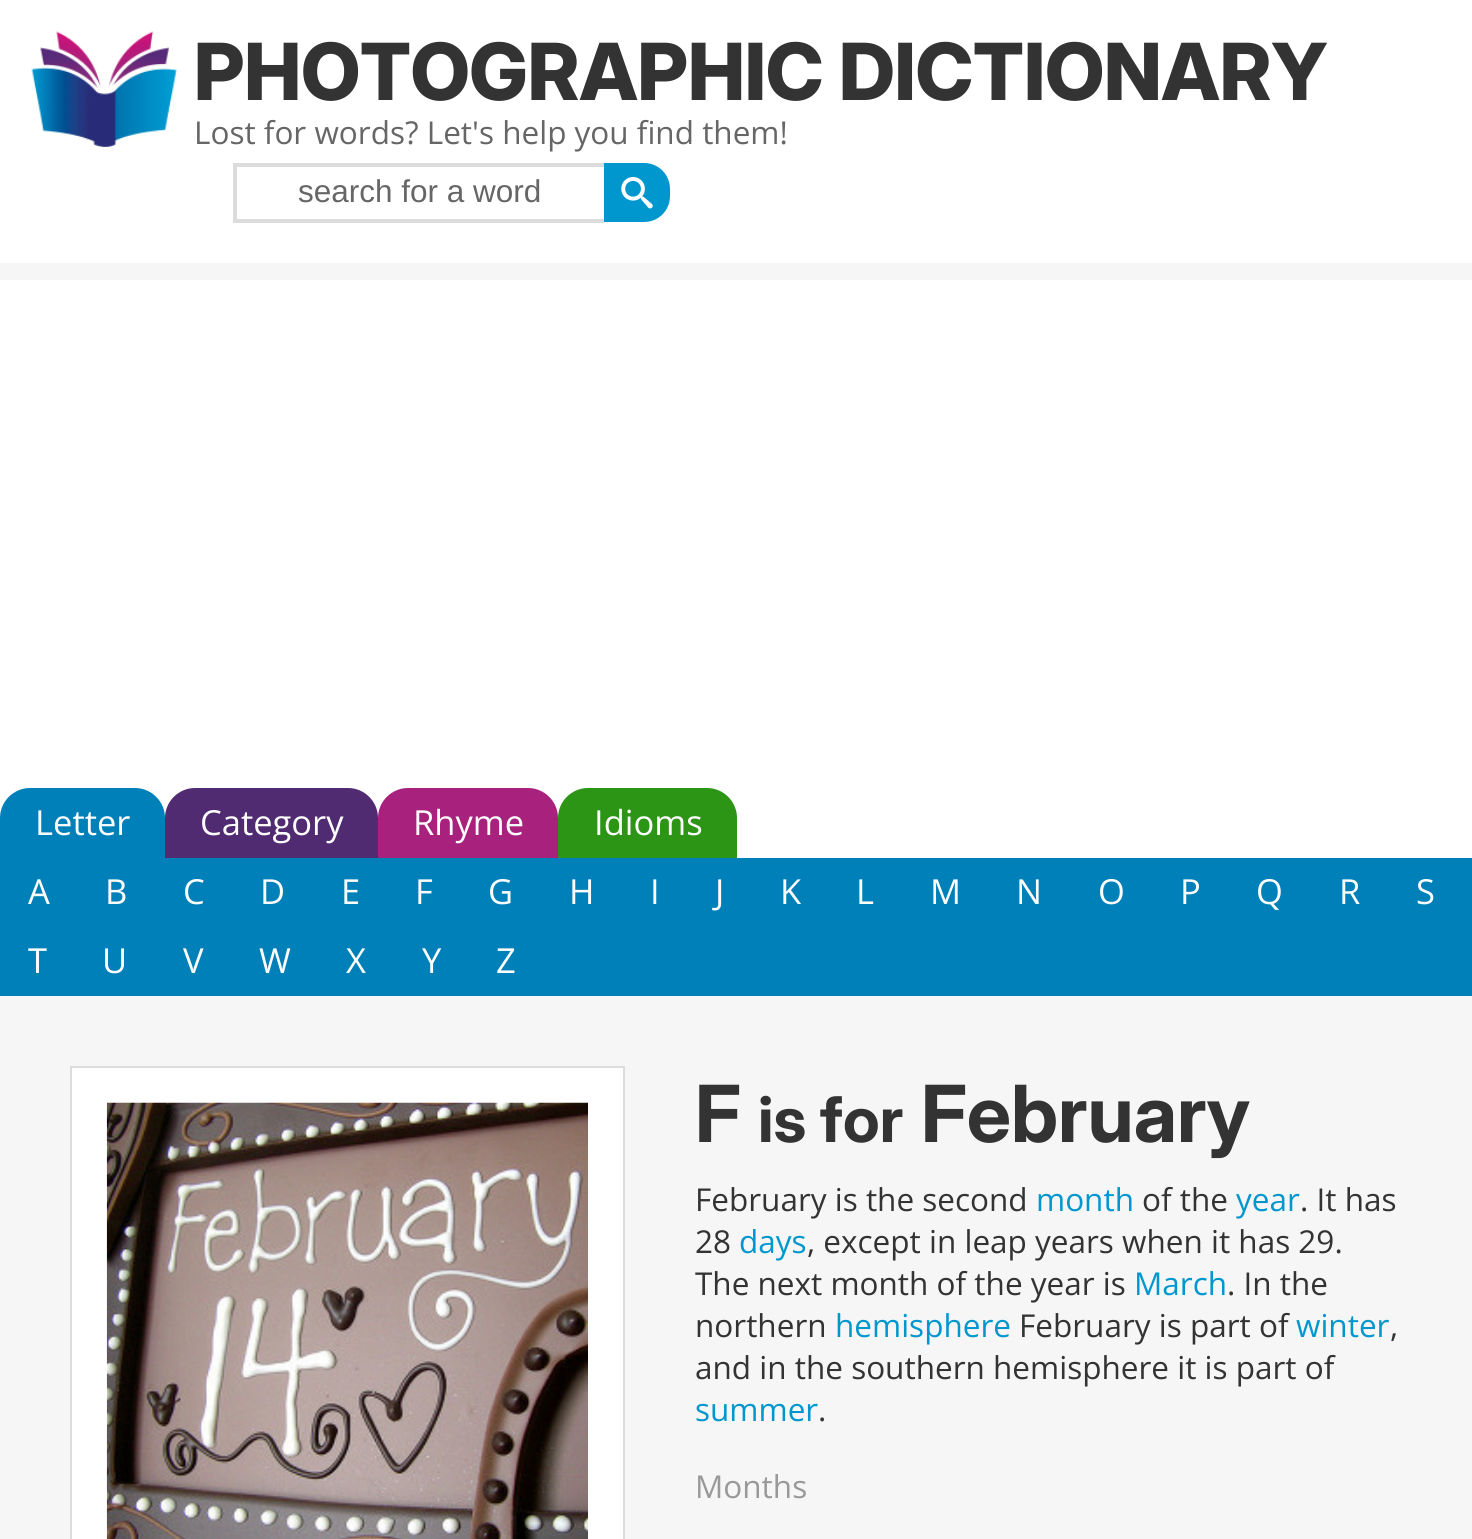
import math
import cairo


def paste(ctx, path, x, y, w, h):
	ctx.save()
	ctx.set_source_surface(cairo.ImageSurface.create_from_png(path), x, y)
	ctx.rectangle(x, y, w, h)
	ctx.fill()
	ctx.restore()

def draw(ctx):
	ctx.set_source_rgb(0.961, 0.961, 0.961)
	ctx.paint()
	ctx.set_source_rgb(1, 1, 1)
	ctx.rectangle(0, 0, 1472, 263)
	ctx.fill()
	paste(ctx, 'media/1.png', 31, 31, 146, 116)
	ctx.select_font_face('Inter ExtraBold')
	ctx.set_font_size(78.75)
	ctx.set_source_rgb(0.2, 0.2, 0.2)
	ctx.move_to(194, 100)
	ctx.show_text('PHOTOGRAPHIC DICTIONARY')
	ctx.select_font_face('Open Sans')
	ctx.set_font_size(31.5)
	ctx.set_source_rgb(0.4, 0.4, 0.4)
	ctx.move_to(194, 144)
	ctx.show_text('Lost for words? Let\'s help you find them!')
	ctx.set_source_rgb(0.863, 0.863, 0.863)
	ctx.rectangle(233, 163, 371, 4)
	ctx.rectangle(233, 219, 371, 4)
	ctx.rectangle(233, 163, 4, 59)
	ctx.fill()
	ctx.select_font_face('Liberation Sans')
	ctx.set_source_rgb(0.4, 0.4, 0.4)
	ctx.move_to(298, 202)
	ctx.show_text('search for a word')
	ctx.set_source_rgb(0, 0.592, 0.808)
	ctx.new_path()
	ctx.move_to(604, 163)
	ctx.line_to(644, 163)
	ctx.curve_to(658.5, 163, 670, 174.5, 670, 189)
	ctx.line_to(670, 196)
	ctx.curve_to(670, 210.5, 658.5, 222, 644, 222)
	ctx.line_to(604, 222)
	ctx.close_path()
	ctx.fill()
	paste(ctx, 'media/2.png', 621, 177, 32, 32)
	ctx.set_source_rgb(1, 1, 1)
	ctx.rectangle(0, 280, 1472, 578)
	ctx.fill()
	ctx.set_source_rgb(0, 0.502, 0.722)
	ctx.new_path()
	ctx.move_to(30, 788)
	ctx.line_to(135, 788)
	ctx.curve_to(151.5, 788, 165, 801.5, 165, 818)
	ctx.line_to(165, 858)
	ctx.line_to(0, 858)
	ctx.line_to(0, 818)
	ctx.curve_to(0, 801.5, 13.5, 788, 30, 788)
	ctx.close_path()
	ctx.fill()
	ctx.select_font_face('Open Sans')
	ctx.set_font_size(34.5)
	ctx.set_source_rgb(0.996, 0.996, 0.996)
	ctx.move_to(35, 835)
	ctx.show_text('Letter')
	ctx.set_source_rgb(0.318, 0.169, 0.447)
	ctx.new_path()
	ctx.move_to(195, 788)
	ctx.line_to(348, 788)
	ctx.curve_to(364.5, 788, 378, 801.5, 378, 818)
	ctx.line_to(378, 858)
	ctx.line_to(165, 858)
	ctx.line_to(165, 818)
	ctx.curve_to(165, 801.5, 178.5, 788, 195, 788)
	ctx.close_path()
	ctx.fill()
	ctx.set_source_rgb(0.996, 0.996, 0.996)
	ctx.move_to(200, 835)
	ctx.show_text('Category')
	ctx.set_source_rgb(0.659, 0.129, 0.486)
	ctx.new_path()
	ctx.move_to(408, 788)
	ctx.line_to(528, 788)
	ctx.curve_to(544.5, 788, 558, 801.5, 558, 818)
	ctx.line_to(558, 858)
	ctx.line_to(378, 858)
	ctx.line_to(378, 818)
	ctx.curve_to(378, 801.5, 391.5, 788, 408, 788)
	ctx.close_path()
	ctx.fill()
	ctx.set_source_rgb(0.996, 0.996, 0.996)
	ctx.move_to(413, 835)
	ctx.show_text('Rhyme')
	ctx.set_source_rgb(0.173, 0.584, 0.086)
	ctx.new_path()
	ctx.move_to(588, 788)
	ctx.line_to(707, 788)
	ctx.curve_to(723.5, 788, 737, 801.5, 737, 818)
	ctx.line_to(737, 858)
	ctx.line_to(558, 858)
	ctx.line_to(558, 818)
	ctx.curve_to(558, 801.5, 571.5, 788, 588, 788)
	ctx.close_path()
	ctx.fill()
	ctx.set_source_rgb(0.996, 0.996, 0.996)
	ctx.move_to(594, 835)
	ctx.show_text('Idioms')
	ctx.set_source_rgb(0, 0.502, 0.722)
	ctx.rectangle(0, 858, 1472, 138)
	ctx.fill()
	ctx.set_source_rgb(0.996, 0.996, 0.996)
	for x, y, s in [
		(28, 904, 'A'),
		(105, 904, 'B'),
		(183, 904, 'C'),
		(260, 904, 'D'),
		(341, 904, 'E'),
		(415, 904, 'F'),
		(488, 904, 'G'),
		(569, 904, 'H'),
		(650, 904, 'I'),
		(715, 904, 'J'),
		(780, 904, 'K'),
		(856, 904, 'L'),
		(930, 904, 'M'),
		(1016, 904, 'N'),
		(1098, 904, 'O'),
		(1180, 904, 'P'),
		(1256, 904, 'Q'),
		(1339, 904, 'R'),
		(1416, 904, 'S'),
		(28, 973, 'T'),
		(102, 973, 'U'),
		(183, 973, 'V'),
		(259, 973, 'W'),
		(346, 973, 'X'),
		(422, 973, 'Y'),
		(496, 973, 'Z'),
	]:
		ctx.move_to(x, y)
		ctx.show_text(s)
	ctx.set_source_rgb(1, 1, 1)
	ctx.rectangle(71, 1067, 553, 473)
	ctx.fill_preserve()
	ctx.set_source_rgb(0.863, 0.863, 0.863)
	ctx.stroke()
	paste(ctx, 'media/3.png', 106, 1102, 482, 437)
	ctx.select_font_face('Inter', cairo.FONT_SLANT_NORMAL, cairo.FONT_WEIGHT_BOLD)
	ctx.set_font_size(78.75)
	ctx.set_source_rgb(0.2, 0.2, 0.2)
	ctx.move_to(695, 1142)
	ctx.show_text('F')
	ctx.set_font_size(63)
	ctx.move_to(758, 1142)
	ctx.show_text('is for')
	ctx.set_font_size(78.75)
	ctx.move_to(921, 1142)
	ctx.show_text('February')
	ctx.select_font_face('Open Sans')
	ctx.set_font_size(31.5)
	ctx.move_to(695, 1211)
	ctx.show_text('February is the second')
	ctx.set_source_rgb(0, 0.592, 0.808)
	ctx.move_to(1036, 1211)
	ctx.show_text('month')
	ctx.set_source_rgb(0.2, 0.2, 0.2)
	ctx.move_to(1142, 1211)
	ctx.show_text('of the')
	ctx.set_source_rgb(0, 0.592, 0.808)
	ctx.move_to(1236, 1211)
	ctx.show_text('year')
	ctx.set_source_rgb(0.2, 0.2, 0.2)
	ctx.move_to(1300, 1211)
	ctx.show_text('. It has')
	ctx.move_to(695, 1253)
	ctx.show_text('28')
	ctx.set_source_rgb(0, 0.592, 0.808)
	ctx.move_to(739, 1253)
	ctx.show_text('days')
	ctx.set_source_rgb(0.2, 0.2, 0.2)
	ctx.move_to(807, 1253)
	ctx.show_text(', except in leap years when it has 29.')
	ctx.move_to(695, 1295)
	ctx.show_text('The next month of the year is')
	ctx.set_source_rgb(0, 0.592, 0.808)
	ctx.move_to(1134, 1295)
	ctx.show_text('March')
	ctx.set_source_rgb(0.2, 0.2, 0.2)
	ctx.move_to(1227, 1295)
	ctx.show_text('. In the')
	ctx.move_to(695, 1337)
	ctx.show_text('northern')
	ctx.set_source_rgb(0, 0.592, 0.808)
	ctx.move_to(835, 1337)
	ctx.show_text('hemisphere')
	ctx.set_source_rgb(0.2, 0.2, 0.2)
	ctx.move_to(1019, 1337)
	ctx.show_text('February is part of')
	ctx.set_source_rgb(0, 0.592, 0.808)
	ctx.move_to(1296, 1337)
	ctx.show_text('winter')
	ctx.set_source_rgb(0.2, 0.2, 0.2)
	ctx.move_to(1390, 1337)
	ctx.show_text(',')
	ctx.move_to(695, 1379)
	ctx.show_text('and in the southern hemisphere it is part of')
	ctx.set_source_rgb(0, 0.592, 0.808)
	ctx.move_to(695, 1421)
	ctx.show_text('summer')
	ctx.set_source_rgb(0.2, 0.2, 0.2)
	ctx.move_to(818, 1421)
	ctx.show_text('.')
	ctx.set_source_rgb(0.6, 0.6, 0.6)
	ctx.move_to(695, 1498)
	ctx.show_text('Months')


surface = cairo.ImageSurface(cairo.FORMAT_RGB24, 1472, 1539)
ctx = cairo.Context(surface)
options = cairo.FontOptions()
options.set_hint_metrics(cairo.HINT_METRICS_OFF)
options.set_hint_style(cairo.HINT_STYLE_NONE)
ctx.set_font_options(options)
ctx.set_miter_limit(4)
draw(ctx)
surface.write_to_png('image.png')
